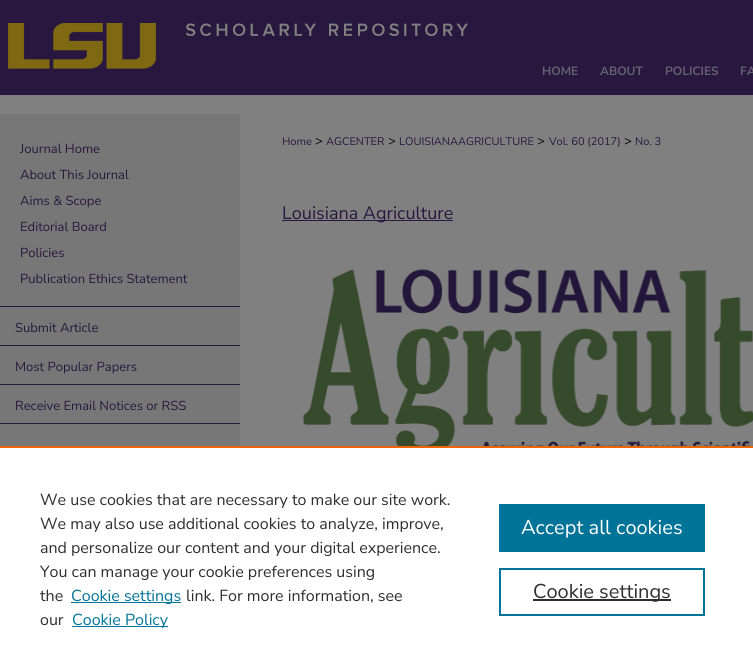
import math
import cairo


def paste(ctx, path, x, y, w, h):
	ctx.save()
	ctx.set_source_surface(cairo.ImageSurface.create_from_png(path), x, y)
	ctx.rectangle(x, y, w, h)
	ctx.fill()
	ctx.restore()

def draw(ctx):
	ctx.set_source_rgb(0.502, 0.502, 0.502)
	ctx.paint()
	ctx.set_source_rgb(0.157, 0.094, 0.251)
	ctx.rectangle(0, 0, 753, 95)
	ctx.fill()
	paste(ctx, 'media/1.png', 8, 23, 460, 46)
	ctx.select_font_face('Nunito Sans', cairo.FONT_SLANT_NORMAL, cairo.FONT_WEIGHT_BOLD)
	ctx.set_font_size(12)
	ctx.set_source_rgb(0.4, 0.373, 0.431)
	for x, y, s in [
		(542, 75, 'HOME'),
		(600, 75, 'ABOUT'),
		(665, 75, 'POLICIES'),
		(740, 75, 'FA'),
	]:
		ctx.move_to(x, y)
		ctx.show_text(s)
	ctx.set_source_rgb(0.467, 0.467, 0.467)
	ctx.rectangle(0, 114, 240, 332)
	ctx.fill()
	ctx.select_font_face('Nunito Sans')
	ctx.set_font_size(13)
	ctx.set_source_rgb(0.157, 0.094, 0.251)
	for x, y, s in [
		(20, 153, 'Journal Home'),
		(20, 179, 'About This Journal'),
		(20, 205, 'Aims & Scope'),
		(20, 231, 'Editorial Board'),
		(20, 257, 'Policies'),
		(20, 283, 'Publication Ethics Statement'),
	]:
		ctx.move_to(x, y)
		ctx.show_text(s)
	ctx.rectangle(0, 306, 240, 1)
	ctx.fill()
	ctx.rectangle(0, 345, 240, 1)
	ctx.fill()
	ctx.move_to(15, 332)
	ctx.show_text('Submit Article')
	ctx.rectangle(0, 384, 240, 1)
	ctx.fill()
	ctx.move_to(15, 371)
	ctx.show_text('Most Popular Papers')
	ctx.rectangle(0, 423, 240, 1)
	ctx.fill()
	ctx.move_to(15, 410)
	ctx.show_text('Receive Email Notices or RSS')
	ctx.set_font_size(11)
	ctx.move_to(282, 145)
	ctx.show_text('Home')
	ctx.set_font_size(13)
	ctx.set_source_rgb(0, 0, 0)
	ctx.move_to(315, 145)
	ctx.show_text('>')
	ctx.set_font_size(11)
	ctx.set_source_rgb(0.157, 0.094, 0.251)
	ctx.move_to(326, 145)
	ctx.show_text('AGCENTER')
	ctx.set_font_size(13)
	ctx.set_source_rgb(0, 0, 0)
	ctx.move_to(388, 145)
	ctx.show_text('>')
	ctx.set_font_size(11)
	ctx.set_source_rgb(0.157, 0.094, 0.251)
	ctx.move_to(399, 145)
	ctx.show_text('LOUISIANAAGRICULTURE')
	ctx.set_font_size(13)
	ctx.set_source_rgb(0, 0, 0)
	ctx.move_to(537, 145)
	ctx.show_text('>')
	ctx.set_font_size(11)
	ctx.set_source_rgb(0.157, 0.094, 0.251)
	ctx.move_to(549, 145)
	ctx.show_text('Vol. 60 (2017)')
	ctx.set_font_size(13)
	ctx.set_source_rgb(0, 0, 0)
	ctx.move_to(624, 145)
	ctx.show_text('>')
	ctx.set_font_size(11)
	ctx.set_source_rgb(0.157, 0.094, 0.251)
	ctx.move_to(635, 145)
	ctx.show_text('No. 3')
	ctx.rectangle(282, 220, 171, 1)
	ctx.fill()
	ctx.set_font_size(18)
	ctx.move_to(282, 219)
	ctx.show_text('Louisiana Agriculture')
	paste(ctx, 'media/2.png', 303, 269, 450, 177)
	ctx.set_source_rgb(1, 1, 1)
	ctx.rectangle(0, 448, 753, 224)
	ctx.fill()
	ctx.set_source_rgb(0.922, 0.396, 0)
	ctx.rectangle(0, 446, 753, 2)
	ctx.fill()
	ctx.set_font_size(16)
	ctx.set_source_rgb(0.18, 0.18, 0.18)
	for x, y, s in [
		(40, 505, 'We use cookies that are necessary to make our site work.'),
		(40, 529, 'We may also use additional cookies to analyze, improve,'),
		(40, 553, 'and personalize our content and your digital experience.'),
		(40, 577, 'You can manage your cookie preferences using'),
		(40, 601, 'the'),
	]:
		ctx.move_to(x, y)
		ctx.show_text(s)
	ctx.set_source_rgb(0, 0.451, 0.596)
	ctx.rectangle(71, 602, 110, 1)
	ctx.fill()
	ctx.move_to(71, 601)
	ctx.show_text('Cookie settings')
	ctx.set_source_rgb(0.18, 0.18, 0.18)
	ctx.move_to(186, 601)
	ctx.show_text('link. For more information, see')
	ctx.move_to(40, 625)
	ctx.show_text('our')
	ctx.set_source_rgb(0, 0.451, 0.596)
	ctx.rectangle(72, 626, 96, 1)
	ctx.fill()
	ctx.move_to(72, 625)
	ctx.show_text('Cookie Policy')
	ctx.rectangle(499, 504, 206, 48)
	ctx.fill()
	ctx.set_font_size(20)
	ctx.set_source_rgb(1, 1, 1)
	ctx.move_to(521, 534)
	ctx.show_text('Accept all cookies')
	ctx.rectangle(500, 569, 204, 46)
	ctx.set_source_rgb(0, 0.451, 0.596)
	ctx.stroke()
	ctx.set_source_rgb(0.18, 0.18, 0.18)
	ctx.rectangle(533, 599, 138, 2)
	ctx.fill()
	ctx.move_to(533, 598)
	ctx.show_text('Cookie settings')


surface = cairo.ImageSurface(cairo.FORMAT_RGB24, 753, 672)
ctx = cairo.Context(surface)
options = cairo.FontOptions()
options.set_hint_metrics(cairo.HINT_METRICS_OFF)
options.set_hint_style(cairo.HINT_STYLE_NONE)
ctx.set_font_options(options)
ctx.set_miter_limit(4)
draw(ctx)
surface.write_to_png('image.png')
